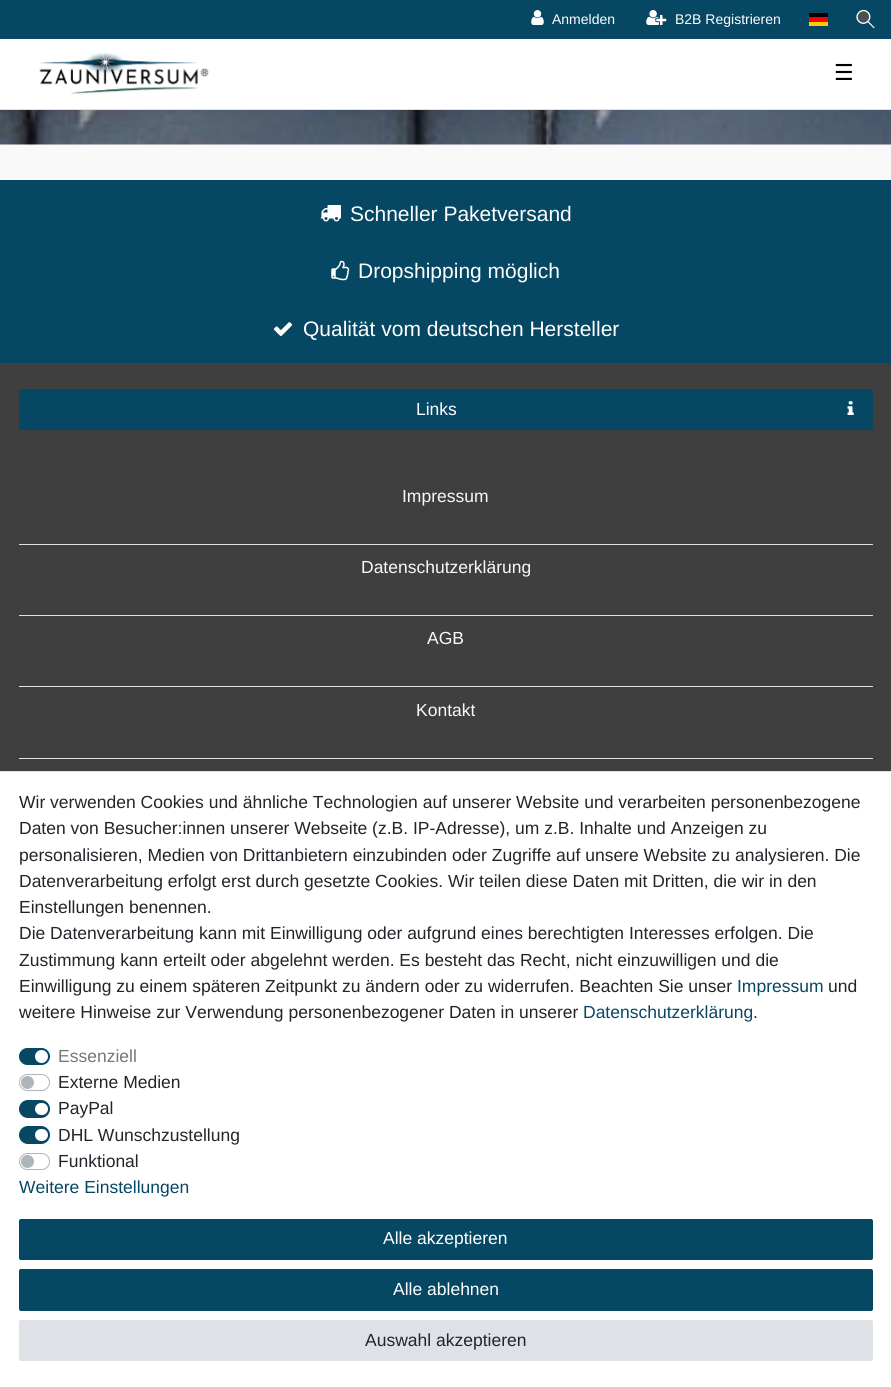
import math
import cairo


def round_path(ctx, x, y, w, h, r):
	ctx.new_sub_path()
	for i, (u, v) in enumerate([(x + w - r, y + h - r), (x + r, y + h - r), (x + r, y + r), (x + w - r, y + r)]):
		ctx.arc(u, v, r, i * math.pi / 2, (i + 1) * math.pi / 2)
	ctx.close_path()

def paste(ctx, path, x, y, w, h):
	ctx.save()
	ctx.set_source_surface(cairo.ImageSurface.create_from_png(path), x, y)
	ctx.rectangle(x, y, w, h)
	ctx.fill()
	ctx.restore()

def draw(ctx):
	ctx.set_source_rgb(0.973, 0.976, 0.98)
	ctx.paint()
	ctx.set_source_rgb(0.024, 0.278, 0.388)
	ctx.rectangle(0, 0, 891, 39)
	ctx.fill()
	paste(ctx, 'media/1.png', 531, 10, 13, 15)
	ctx.select_font_face('Liberation Sans')
	ctx.set_font_size(14)
	ctx.set_source_rgb(1, 1, 1)
	ctx.move_to(552, 24)
	ctx.show_text('Anmelden')
	paste(ctx, 'media/2.png', 646, 10, 21, 15)
	ctx.move_to(675, 24)
	ctx.show_text('B2B Registrieren')
	ctx.set_source_rgb(1, 0.8, 0)
	ctx.rectangle(809, 22, 19, 4)
	ctx.fill()
	ctx.set_source_rgb(0, 0, 0)
	ctx.rectangle(809, 13, 19, 4)
	ctx.fill()
	ctx.set_source_rgb(1, 0, 0)
	ctx.rectangle(809, 17, 19, 5)
	ctx.fill()
	ctx.set_source_rgb(1, 1, 1)
	ctx.new_path()
	ctx.move_to(873.5, 28)
	ctx.curve_to(872, 26.5, 860.5, 15.5, 861, 15)
	ctx.line_to(862, 14.5)
	ctx.line_to(874.5, 27.5)
	ctx.curve_to(875, 28, 874, 28.5, 873.5, 28)
	ctx.close_path()
	ctx.fill()
	ctx.set_source_rgb(0.286, 0.314, 0.341)
	ctx.new_path()
	ctx.move_to(858.5, 22)
	ctx.curve_to(852, 15.5, 862, 5.5, 868.5, 12)
	ctx.curve_to(874.5, 18.5, 865, 28, 858.5, 22)
	ctx.close_path()
	ctx.fill()
	ctx.new_path()
	ctx.move_to(859, 21.5)
	ctx.curve_to(853, 15.5, 862, 6.5, 868, 12.5)
	ctx.curve_to(873.5, 18.5, 865, 27, 859, 21.5)
	ctx.close_path()
	ctx.set_source_rgb(1, 1, 1)
	ctx.set_line_width(1.3)
	ctx.stroke()
	ctx.rectangle(0, 39, 891, 70)
	ctx.fill()
	ctx.set_source_rgb(0.871, 0.886, 0.902)
	ctx.rectangle(0, 109, 891, 1)
	ctx.fill()
	paste(ctx, 'media/3.png', 39, 52, 170, 43)
	ctx.select_font_face('DejaVu Sans')
	ctx.set_font_size(22)
	ctx.set_source_rgb(0, 0, 0)
	ctx.move_to(834, 80)
	ctx.show_text('☰')
	paste(ctx, 'media/4.png', 0, 110, 891, 35)
	ctx.set_source_rgb(0.024, 0.278, 0.388)
	ctx.rectangle(0, 180, 891, 183)
	ctx.fill()
	paste(ctx, 'media/5.png', 320, 205, 21, 17)
	ctx.select_font_face('Liberation Sans')
	ctx.set_font_size(21)
	ctx.set_source_rgb(1, 1, 1)
	ctx.move_to(350, 221)
	ctx.show_text('Schneller Paketversand')
	paste(ctx, 'media/6.png', 331, 260, 19, 21)
	ctx.move_to(358, 278)
	ctx.show_text('Dropshipping möglich')
	paste(ctx, 'media/7.png', 273, 322, 20, 15)
	ctx.move_to(303, 336)
	ctx.show_text('Qualität vom deutschen Hersteller')
	ctx.set_source_rgb(0.247, 0.247, 0.247)
	ctx.rectangle(0, 363, 891, 408)
	ctx.fill()
	ctx.set_source_rgb(0.024, 0.278, 0.388)
	round_path(ctx, 19.5, 389.5, 853, 40, 1.5)
	ctx.fill_preserve()
	ctx.set_line_width(1)
	ctx.stroke()
	ctx.set_font_size(17.5)
	ctx.set_source_rgb(1, 1, 1)
	ctx.move_to(416, 415)
	ctx.show_text('Links')
	paste(ctx, 'media/8.png', 847, 401, 7, 14)
	ctx.set_source_rgb(0.973, 0.976, 0.98)
	ctx.move_to(402, 502)
	ctx.show_text('Impressum')
	ctx.set_source_rgb(0.871, 0.886, 0.902)
	ctx.rectangle(19, 544, 854, 1)
	ctx.fill()
	ctx.set_source_rgb(0.973, 0.976, 0.98)
	ctx.move_to(361, 573)
	ctx.show_text('Datenschutzerklärung')
	ctx.set_source_rgb(0.871, 0.886, 0.902)
	ctx.rectangle(19, 615, 854, 1)
	ctx.fill()
	ctx.set_source_rgb(0.973, 0.976, 0.98)
	ctx.move_to(427, 644)
	ctx.show_text('AGB')
	ctx.set_source_rgb(0.871, 0.886, 0.902)
	ctx.rectangle(19, 686, 854, 1)
	ctx.fill()
	ctx.set_source_rgb(0.973, 0.976, 0.98)
	ctx.move_to(416, 716)
	ctx.show_text('Kontakt')
	ctx.set_source_rgb(0.871, 0.886, 0.902)
	ctx.rectangle(19, 758, 854, 1)
	ctx.fill()
	ctx.set_source_rgb(1, 1, 1)
	ctx.rectangle(0, 772, 891, 615)
	ctx.fill()
	ctx.set_source_rgb(0.871, 0.886, 0.902)
	ctx.rectangle(0, 771, 891, 1)
	ctx.fill()
	ctx.set_source_rgb(0.129, 0.145, 0.161)
	for x, y, s in [
		(19, 808, 'Wir verwenden Cookies und ähnliche Technologien auf unserer Website und verarbeiten personenbezogene'),
		(19, 834, 'Daten von Besucher:innen unserer Webseite (z.B. IP-Adresse), um z.B. Inhalte und Anzeigen zu'),
		(19, 861, 'personalisieren, Medien von Drittanbietern einzubinden oder Zugriffe auf unsere Website zu analysieren. Die'),
		(19, 887, 'Datenverarbeitung erfolgt erst durch gesetzte Cookies. Wir teilen diese Daten mit Dritten, die wir in den'),
		(19, 913, 'Einstellungen benennen.'),
		(19, 939, 'Die Datenverarbeitung kann mit Einwilligung oder aufgrund eines berechtigten Interesses erfolgen. Die'),
		(19, 966, 'Zustimmung kann erteilt oder abgelehnt werden. Es besteht das Recht, nicht einzuwilligen und die'),
		(19, 992, 'Einwilligung zu einem späteren Zeitpunkt zu ändern oder zu widerrufen. Beachten Sie unser'),
	]:
		ctx.move_to(x, y)
		ctx.show_text(s)
	ctx.set_source_rgb(0.024, 0.278, 0.388)
	ctx.move_to(737, 992)
	ctx.show_text('Impressum')
	ctx.set_source_rgb(0.129, 0.145, 0.161)
	ctx.move_to(828, 992)
	ctx.show_text('und')
	ctx.move_to(19, 1018)
	ctx.show_text('weitere Hinweise zur Verwendung personenbezogener Daten in unserer')
	ctx.set_source_rgb(0.024, 0.278, 0.388)
	ctx.move_to(583, 1018)
	ctx.show_text('Datenschutzerklärung')
	ctx.set_source_rgb(0.129, 0.145, 0.161)
	ctx.move_to(753, 1018)
	ctx.show_text('.')
	ctx.set_source_rgb(0.024, 0.278, 0.388)
	round_path(ctx, 19.5, 1048.5, 30, 16, 8)
	ctx.fill_preserve()
	ctx.stroke()
	ctx.set_source_rgb(0.463, 0.463, 0.463)
	ctx.move_to(58, 1062)
	ctx.show_text('Essenziell')
	ctx.set_source_rgb(1, 1, 1)
	ctx.new_path()
	ctx.arc(41.5, 1056.5, 6.5, 0, 2 * math.pi)
	ctx.fill()
	round_path(ctx, 19.5, 1074.5, 30, 16, 8)
	ctx.set_source_rgb(0.678, 0.71, 0.741)
	ctx.stroke()
	ctx.set_source_rgb(0.129, 0.145, 0.161)
	ctx.move_to(58, 1088)
	ctx.show_text('Externe Medien')
	ctx.set_source_rgb(0.678, 0.71, 0.741)
	ctx.new_path()
	ctx.arc(27.5, 1082.5, 6.5, 0, 2 * math.pi)
	ctx.fill()
	ctx.set_source_rgb(0.024, 0.278, 0.388)
	round_path(ctx, 19.5, 1100.5, 30, 17, 8.5)
	ctx.fill_preserve()
	ctx.stroke()
	ctx.set_source_rgb(0.129, 0.145, 0.161)
	ctx.move_to(58, 1114)
	ctx.show_text('PayPal')
	ctx.set_source_rgb(1, 1, 1)
	round_path(ctx, 35, 1103, 13, 12, 6)
	ctx.fill()
	ctx.set_source_rgb(0.024, 0.278, 0.388)
	round_path(ctx, 19.5, 1126.5, 30, 17, 8.5)
	ctx.fill_preserve()
	ctx.stroke()
	ctx.set_source_rgb(0.129, 0.145, 0.161)
	ctx.move_to(58, 1141)
	ctx.show_text('DHL Wunschzustellung')
	ctx.set_source_rgb(1, 1, 1)
	round_path(ctx, 35, 1129, 13, 12, 6)
	ctx.fill()
	round_path(ctx, 19.5, 1153.5, 30, 16, 8)
	ctx.set_source_rgb(0.678, 0.71, 0.741)
	ctx.stroke()
	ctx.set_source_rgb(0.129, 0.145, 0.161)
	ctx.move_to(58, 1167)
	ctx.show_text('Funktional')
	ctx.set_source_rgb(0.678, 0.71, 0.741)
	ctx.new_path()
	ctx.arc(27.5, 1161.5, 6.5, 0, 2 * math.pi)
	ctx.fill()
	ctx.set_source_rgb(0.024, 0.278, 0.388)
	ctx.move_to(19, 1193)
	ctx.show_text('Weitere Einstellungen')
	round_path(ctx, 19.5, 1219.5, 853, 40, 1.5)
	ctx.fill_preserve()
	ctx.stroke()
	ctx.set_source_rgb(1, 1, 1)
	ctx.move_to(383, 1244)
	ctx.show_text('Alle akzeptieren')
	ctx.set_source_rgb(0.024, 0.278, 0.388)
	round_path(ctx, 19.5, 1269.5, 853, 41, 1.5)
	ctx.fill_preserve()
	ctx.stroke()
	ctx.set_source_rgb(1, 1, 1)
	ctx.move_to(393, 1295)
	ctx.show_text('Alle ablehnen')
	ctx.set_source_rgb(0.871, 0.886, 0.902)
	round_path(ctx, 19.5, 1320.5, 853, 40, 1.5)
	ctx.fill_preserve()
	ctx.stroke()
	ctx.set_source_rgb(0.129, 0.145, 0.161)
	ctx.move_to(365, 1346)
	ctx.show_text('Auswahl akzeptieren')


surface = cairo.ImageSurface(cairo.FORMAT_RGB24, 891, 1387)
ctx = cairo.Context(surface)
options = cairo.FontOptions()
options.set_hint_metrics(cairo.HINT_METRICS_OFF)
options.set_hint_style(cairo.HINT_STYLE_NONE)
ctx.set_font_options(options)
ctx.set_miter_limit(4)
draw(ctx)
surface.write_to_png('image.png')
